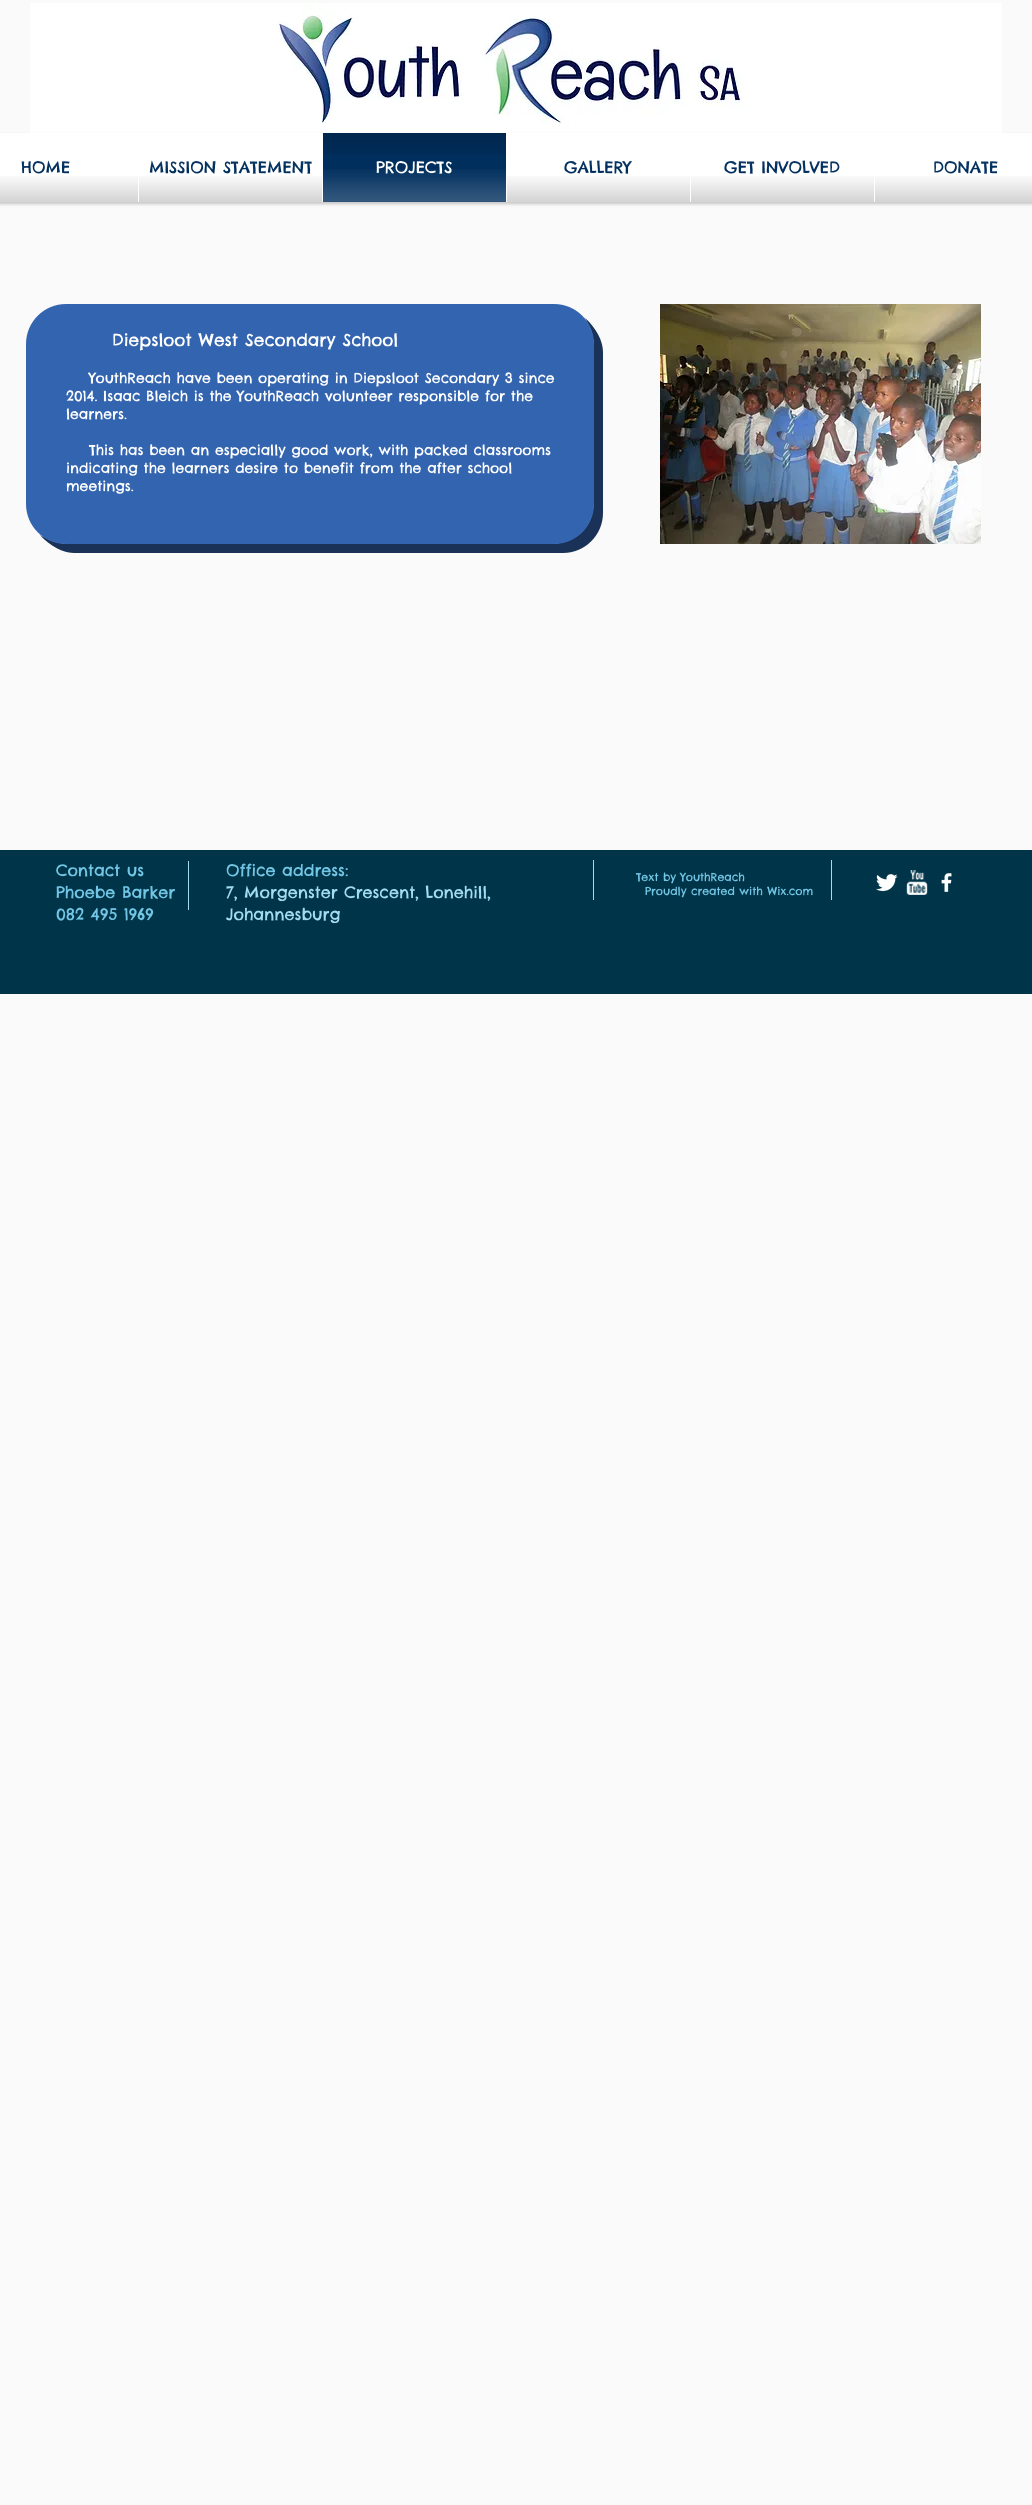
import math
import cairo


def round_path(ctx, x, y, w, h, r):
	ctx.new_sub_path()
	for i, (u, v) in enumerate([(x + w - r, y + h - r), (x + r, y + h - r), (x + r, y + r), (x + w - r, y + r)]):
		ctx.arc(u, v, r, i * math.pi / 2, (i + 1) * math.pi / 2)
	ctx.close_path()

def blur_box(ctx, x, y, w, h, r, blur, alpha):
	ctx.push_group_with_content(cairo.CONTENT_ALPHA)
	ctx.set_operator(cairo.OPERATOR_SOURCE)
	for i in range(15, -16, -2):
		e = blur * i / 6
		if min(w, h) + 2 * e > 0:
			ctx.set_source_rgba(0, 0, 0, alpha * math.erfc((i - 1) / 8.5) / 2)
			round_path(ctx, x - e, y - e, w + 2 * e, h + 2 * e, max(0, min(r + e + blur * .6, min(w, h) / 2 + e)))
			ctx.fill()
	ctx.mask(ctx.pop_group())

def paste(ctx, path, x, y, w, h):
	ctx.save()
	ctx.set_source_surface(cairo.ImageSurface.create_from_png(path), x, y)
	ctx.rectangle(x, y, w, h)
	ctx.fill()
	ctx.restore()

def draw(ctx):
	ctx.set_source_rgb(0.98, 0.98, 0.98)
	ctx.paint()
	paste(ctx, 'media/1.png', 30, 3, 972, 130)
	ctx.set_source_rgb(0.635, 0.62, 0.62)
	blur_box(ctx, -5, 135, 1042, 69, 0, 1.5, 0.6)
	ctx.set_source_rgb(1, 1, 1)
	ctx.rectangle(0, 133, 323, 69)
	ctx.fill()
	ctx.select_font_face('Chelsea Market')
	ctx.set_font_size(16)
	ctx.set_source_rgb(0, 0.18, 0.365)
	ctx.move_to(21, 173)
	ctx.show_text('HOME')
	ctx.set_source_rgba(1, 1, 1, 0.03)
	ctx.rectangle(22, 161, 47, 5)
	ctx.fill()
	paste(ctx, 'media/2.png', 0, 176, 138, 26)
	ctx.set_source_rgb(0, 0.18, 0.365)
	ctx.move_to(149, 173)
	ctx.show_text('MISSION STATEMENT')
	ctx.set_source_rgba(1, 1, 1, 0.03)
	ctx.rectangle(151, 161, 160, 5)
	ctx.fill()
	paste(ctx, 'media/3.png', 139, 176, 183, 26)
	ctx.set_source_rgb(0, 0.18, 0.365)
	ctx.rectangle(323, 133, 183, 69)
	ctx.fill()
	paste(ctx, 'media/4.png', 323, 133, 183, 22)
	ctx.set_source_rgb(1, 1, 1)
	ctx.move_to(376, 173)
	ctx.show_text('PROJECTS')
	paste(ctx, 'media/5.png', 323, 169, 183, 33)
	ctx.rectangle(506, 133, 526, 69)
	ctx.fill()
	ctx.set_source_rgb(0, 0.18, 0.365)
	ctx.move_to(564, 173)
	ctx.show_text('GALLERY')
	paste(ctx, 'media/6.png', 565, 160, 67, 6)
	paste(ctx, 'media/3.png', 507, 176, 183, 26)
	ctx.move_to(724, 173)
	ctx.show_text('GET INVOLVED')
	paste(ctx, 'media/7.png', 725, 160, 114, 6)
	paste(ctx, 'media/3.png', 691, 176, 183, 26)
	ctx.move_to(933, 173)
	ctx.show_text('DONATE')
	ctx.set_source_rgba(1, 1, 1, 0.03)
	ctx.rectangle(935, 161, 63, 5)
	ctx.fill()
	paste(ctx, 'media/8.png', 875, 176, 157, 26)
	ctx.set_source_rgb(0.102, 0.196, 0.345)
	ctx.new_path()
	ctx.move_to(43, 536)
	ctx.curve_to(50, 546, 62, 553, 75, 553)
	ctx.line_to(563, 553)
	ctx.curve_to(585, 553, 603, 535, 603, 513)
	ctx.line_to(603, 353)
	ctx.curve_to(603, 340, 596, 328, 586, 321)
	ctx.curve_to(591, 327, 594, 335, 594, 344)
	ctx.line_to(594, 504)
	ctx.curve_to(594, 526, 576, 544, 554, 544)
	ctx.line_to(66, 544)
	ctx.curve_to(57, 544, 49, 541, 43, 536)
	ctx.close_path()
	ctx.fill()
	ctx.new_path()
	ctx.move_to(41, 536)
	ctx.curve_to(49, 545, 60, 551, 73, 551)
	ctx.line_to(561, 551)
	ctx.curve_to(583, 551, 601, 533, 601, 511)
	ctx.line_to(601, 351)
	ctx.curve_to(601, 338, 595, 327, 586, 319)
	ctx.curve_to(591, 326, 594, 335, 594, 344)
	ctx.line_to(594, 504)
	ctx.curve_to(594, 526, 576, 544, 554, 544)
	ctx.line_to(66, 544)
	ctx.curve_to(57, 544, 48, 541, 41, 536)
	ctx.close_path()
	ctx.fill()
	ctx.new_path()
	ctx.move_to(40, 535)
	ctx.curve_to(48, 543, 59, 549, 71, 549)
	ctx.line_to(559, 549)
	ctx.curve_to(581, 549, 599, 531, 599, 509)
	ctx.line_to(599, 349)
	ctx.curve_to(599, 337, 593, 326, 585, 318)
	ctx.curve_to(590, 325, 594, 334, 594, 344)
	ctx.line_to(594, 504)
	ctx.curve_to(594, 526, 576, 544, 554, 544)
	ctx.line_to(66, 544)
	ctx.curve_to(56, 544, 47, 540, 40, 535)
	ctx.close_path()
	ctx.fill()
	ctx.new_path()
	ctx.move_to(39, 534)
	ctx.curve_to(47, 542, 57, 547, 69, 547)
	ctx.line_to(557, 547)
	ctx.curve_to(579, 547, 597, 529, 597, 507)
	ctx.line_to(597, 347)
	ctx.curve_to(597, 335, 592, 325, 584, 317)
	ctx.curve_to(590, 324, 594, 334, 594, 344)
	ctx.line_to(594, 504)
	ctx.curve_to(594, 526, 576, 544, 554, 544)
	ctx.line_to(66, 544)
	ctx.curve_to(56, 544, 46, 540, 39, 534)
	ctx.close_path()
	ctx.fill()
	ctx.new_path()
	ctx.move_to(38, 533)
	ctx.curve_to(45, 540, 56, 545, 67, 545)
	ctx.line_to(555, 545)
	ctx.curve_to(577, 545, 595, 527, 595, 505)
	ctx.line_to(595, 345)
	ctx.curve_to(595, 334, 590, 323, 583, 316)
	ctx.curve_to(590, 323, 594, 333, 594, 344)
	ctx.line_to(594, 504)
	ctx.curve_to(594, 526, 576, 544, 554, 544)
	ctx.line_to(66, 544)
	ctx.curve_to(55, 544, 45, 540, 38, 533)
	ctx.close_path()
	ctx.fill()
	ctx.set_source_rgb(0.2, 0.392, 0.686)
	round_path(ctx, 26, 304, 568, 240, 40)
	ctx.fill()
	ctx.set_font_size(17)
	ctx.set_source_rgb(1, 1, 1)
	ctx.move_to(112, 346)
	ctx.show_text('Diepsloot West Secondary School')
	ctx.set_font_size(14)
	for x, y, s in [
		(89, 383, 'YouthReach have been operating in Diepsloot Secondary 3 since'),
		(66, 401, '2014. Isaac Bleich is the YouthReach volunteer responsible for the'),
		(66, 419, 'learners.'),
		(89, 455, 'This has been an especially good work, with packed classrooms'),
		(66, 473, 'indicating the learners desire to benefit from the after school'),
		(66, 491, 'meetings.'),
	]:
		ctx.move_to(x, y)
		ctx.show_text(s)
	paste(ctx, 'media/9.png', 660, 304, 321, 240)
	ctx.set_source_rgb(0, 0.204, 0.282)
	ctx.rectangle(0, 850, 1032, 144)
	ctx.fill()
	ctx.set_font_size(16)
	ctx.set_source_rgb(0.447, 0.776, 0.898)
	for x, y, s in [
		(56, 876, 'Contact us'),
		(56, 898, 'Phoebe Barker'),
		(56, 920, '082 495 1969'),
	]:
		ctx.move_to(x, y)
		ctx.show_text(s)
	ctx.set_source_rgb(0.631, 0.863, 0.949)
	ctx.rectangle(188, 861, 1, 49)
	ctx.fill()
	ctx.set_source_rgb(0.447, 0.776, 0.898)
	ctx.move_to(226, 876)
	ctx.show_text('Office address:')
	ctx.set_source_rgb(0.631, 0.863, 0.949)
	ctx.move_to(226, 898)
	ctx.show_text('7, Morgenster Crescent, Lonehill,')
	ctx.move_to(226, 920)
	ctx.show_text('Johannesburg')
	ctx.rectangle(593, 860, 1, 40)
	ctx.fill()
	ctx.set_font_size(11)
	ctx.set_source_rgb(0.447, 0.776, 0.898)
	ctx.move_to(636, 881)
	ctx.show_text('Text by YouthReach')
	ctx.move_to(645, 895)
	ctx.show_text('Proudly created with Wix.com')
	ctx.set_source_rgb(0.631, 0.863, 0.949)
	ctx.rectangle(831, 860, 1, 40)
	ctx.fill()
	paste(ctx, 'media/10.png', 876, 874, 22, 18)
	paste(ctx, 'media/11.png', 906, 870, 22, 25)
	paste(ctx, 'media/12.png', 941, 873, 11, 19)


surface = cairo.ImageSurface(cairo.FORMAT_RGB24, 1032, 2505)
ctx = cairo.Context(surface)
options = cairo.FontOptions()
options.set_hint_metrics(cairo.HINT_METRICS_OFF)
options.set_hint_style(cairo.HINT_STYLE_NONE)
ctx.set_font_options(options)
ctx.set_miter_limit(4)
draw(ctx)
surface.write_to_png('image.png')
